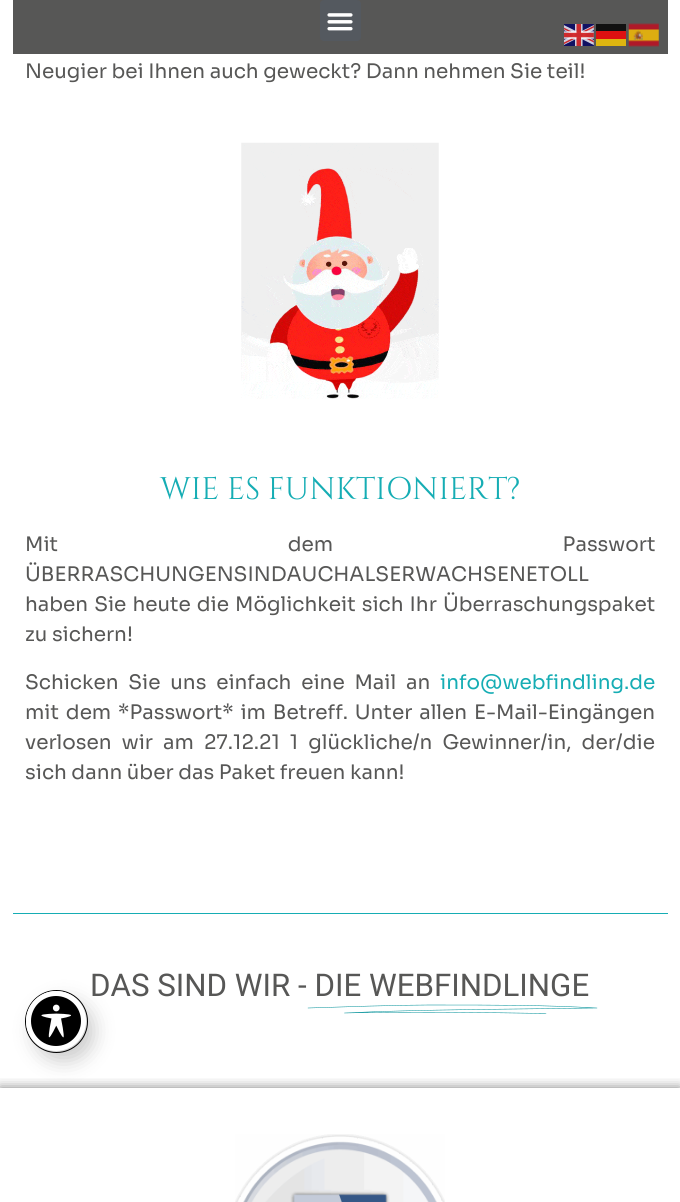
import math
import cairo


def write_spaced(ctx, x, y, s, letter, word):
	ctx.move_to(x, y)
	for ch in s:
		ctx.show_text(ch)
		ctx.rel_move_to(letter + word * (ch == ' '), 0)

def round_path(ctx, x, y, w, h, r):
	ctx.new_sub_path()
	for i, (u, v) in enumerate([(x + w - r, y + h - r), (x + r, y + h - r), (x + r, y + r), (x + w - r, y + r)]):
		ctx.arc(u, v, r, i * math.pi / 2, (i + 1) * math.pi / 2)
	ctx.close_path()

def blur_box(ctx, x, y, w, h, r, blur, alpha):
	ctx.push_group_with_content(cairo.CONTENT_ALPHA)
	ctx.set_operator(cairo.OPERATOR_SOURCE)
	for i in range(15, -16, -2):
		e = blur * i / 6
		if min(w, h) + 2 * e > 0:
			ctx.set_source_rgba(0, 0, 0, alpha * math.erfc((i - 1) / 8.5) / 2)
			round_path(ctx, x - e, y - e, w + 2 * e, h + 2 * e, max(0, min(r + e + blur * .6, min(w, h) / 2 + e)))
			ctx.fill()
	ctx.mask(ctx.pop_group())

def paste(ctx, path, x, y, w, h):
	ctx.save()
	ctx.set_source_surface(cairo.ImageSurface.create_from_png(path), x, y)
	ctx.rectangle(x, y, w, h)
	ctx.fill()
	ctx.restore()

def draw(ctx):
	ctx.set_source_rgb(1, 1, 1)
	ctx.paint()
	ctx.set_source_rgb(0.341, 0.341, 0.337)
	ctx.rectangle(13, 0, 655, 54)
	ctx.fill()
	ctx.set_source_rgb(0.329, 0.349, 0.373)
	round_path(ctx, 320, 0, 41, 41, 4)
	ctx.fill()
	paste(ctx, 'media/1.png', 327, 13, 26, 18)
	paste(ctx, 'media/2.png', 564, 24, 30, 22)
	ctx.set_source_rgb(0.067, 0.067, 0.067)
	ctx.rectangle(596, 24, 30, 7)
	ctx.fill()
	paste(ctx, 'media/3.png', 628, 23, 31, 24)
	ctx.set_source_rgb(0.867, 0.067, 0.067)
	ctx.rectangle(596, 31, 30, 8)
	ctx.fill()
	ctx.set_source_rgb(0.867, 0.71, 0.067)
	ctx.rectangle(596, 39, 30, 7)
	ctx.fill()
	ctx.select_font_face('Sora')
	ctx.set_font_size(20)
	ctx.set_source_rgb(0.341, 0.341, 0.337)
	ctx.move_to(25, 78)
	ctx.show_text('Neugier bei Ihnen auch geweckt? Dann nehmen Sie teil!')
	paste(ctx, 'media/4.png', 241, 142, 198, 257)
	ctx.select_font_face('Cinzel')
	ctx.set_font_size(31.25)
	ctx.set_source_rgb(0.086, 0.678, 0.706)
	ctx.move_to(160, 499)
	ctx.show_text('WIE ES FUNKTIONIERT?')
	ctx.select_font_face('Sora')
	ctx.set_font_size(20)
	ctx.set_source_rgb(0.341, 0.341, 0.337)
	write_spaced(ctx, 25, 551, 'Mit dem Passwort', 0, 225)
	ctx.move_to(25, 581)
	ctx.show_text('ÜBERRASCHUNGENSINDAUCHALSERWACHSENETOLL')
	write_spaced(ctx, 25, 611, 'haben Sie heute die Möglichkeit sich Ihr Überraschungspaket', 0, 1.5)
	ctx.move_to(25, 641)
	ctx.show_text('zu sichern!')
	write_spaced(ctx, 25, 689, 'Schicken Sie uns einfach eine Mail an', 0, 5.25)
	ctx.set_source_rgb(0.086, 0.678, 0.706)
	ctx.move_to(440, 689)
	ctx.show_text('info@webfindling.de')
	ctx.set_source_rgb(0.341, 0.341, 0.337)
	write_spaced(ctx, 25, 719, 'mit dem *Passwort* im Betreff. Unter allen E-Mail-Eingängen', 0, 2.25)
	write_spaced(ctx, 25, 749, 'verlosen wir am 27.12.21 1 glückliche/n Gewinner/in, der/die', 0, 5.5)
	ctx.move_to(25, 779)
	ctx.show_text('sich dann über das Paket freuen kann!')
	ctx.new_path()
	ctx.arc(56.5, 1021.5, 31, 0, 2 * math.pi)
	ctx.set_source_rgb(0, 0, 0)
	ctx.set_line_width(1)
	ctx.stroke()
	ctx.set_source_rgb(0, 0, 0)
	blur_box(ctx, 34, 1001, 60, 60, 30, 10, 0.2)
	ctx.set_source_rgb(0, 0, 0)
	ctx.arc(56, 1021, 27.5, 0, 2 * math.pi)
	ctx.fill_preserve()
	ctx.set_source_rgb(1, 1, 1)
	ctx.set_line_width(5)
	ctx.stroke()
	paste(ctx, 'media/5.png', 41, 1004, 30, 34)
	ctx.set_source_rgb(0.086, 0.678, 0.706)
	ctx.rectangle(13, 913, 655, 1)
	ctx.fill()
	ctx.select_font_face('Roboto')
	ctx.set_font_size(31.25)
	ctx.set_source_rgb(0.341, 0.341, 0.337)
	ctx.move_to(90, 996)
	ctx.show_text('DAS SIND WIR - DIE WEBFINDLINGE')
	ctx.new_path()
	ctx.move_to(308, 1008)
	ctx.curve_to(338, 1007, 398.5, 1005, 428, 1005)
	ctx.curve_to(501, 1005, 542, 1005, 597, 1008)
	ctx.curve_to(530.5, 1009, 411.5, 1009.5, 344.5, 1013)
	ctx.curve_to(394, 1011.5, 497, 1012.5, 546, 1013.5)
	ctx.line_to(539.5, 1013.5)
	ctx.set_source_rgb(0, 0.565, 0.596)
	ctx.set_line_width(0.5)
	ctx.set_line_cap(cairo.LINE_CAP_ROUND)
	ctx.set_line_join(cairo.LINE_JOIN_ROUND)
	ctx.stroke()
	ctx.save()
	ctx.rectangle(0, 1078, 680, 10)
	ctx.clip()
	ctx.set_source_rgb(0, 0, 0)
	blur_box(ctx, 0, 1088, 680, 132, 0, 6, 0.5)
	ctx.restore()
	paste(ctx, 'media/6.png', 235, 1134, 210, 68)


surface = cairo.ImageSurface(cairo.FORMAT_RGB24, 680, 1202)
ctx = cairo.Context(surface)
options = cairo.FontOptions()
options.set_hint_metrics(cairo.HINT_METRICS_OFF)
options.set_hint_style(cairo.HINT_STYLE_NONE)
ctx.set_font_options(options)
ctx.set_miter_limit(4)
draw(ctx)
surface.write_to_png('image.png')
